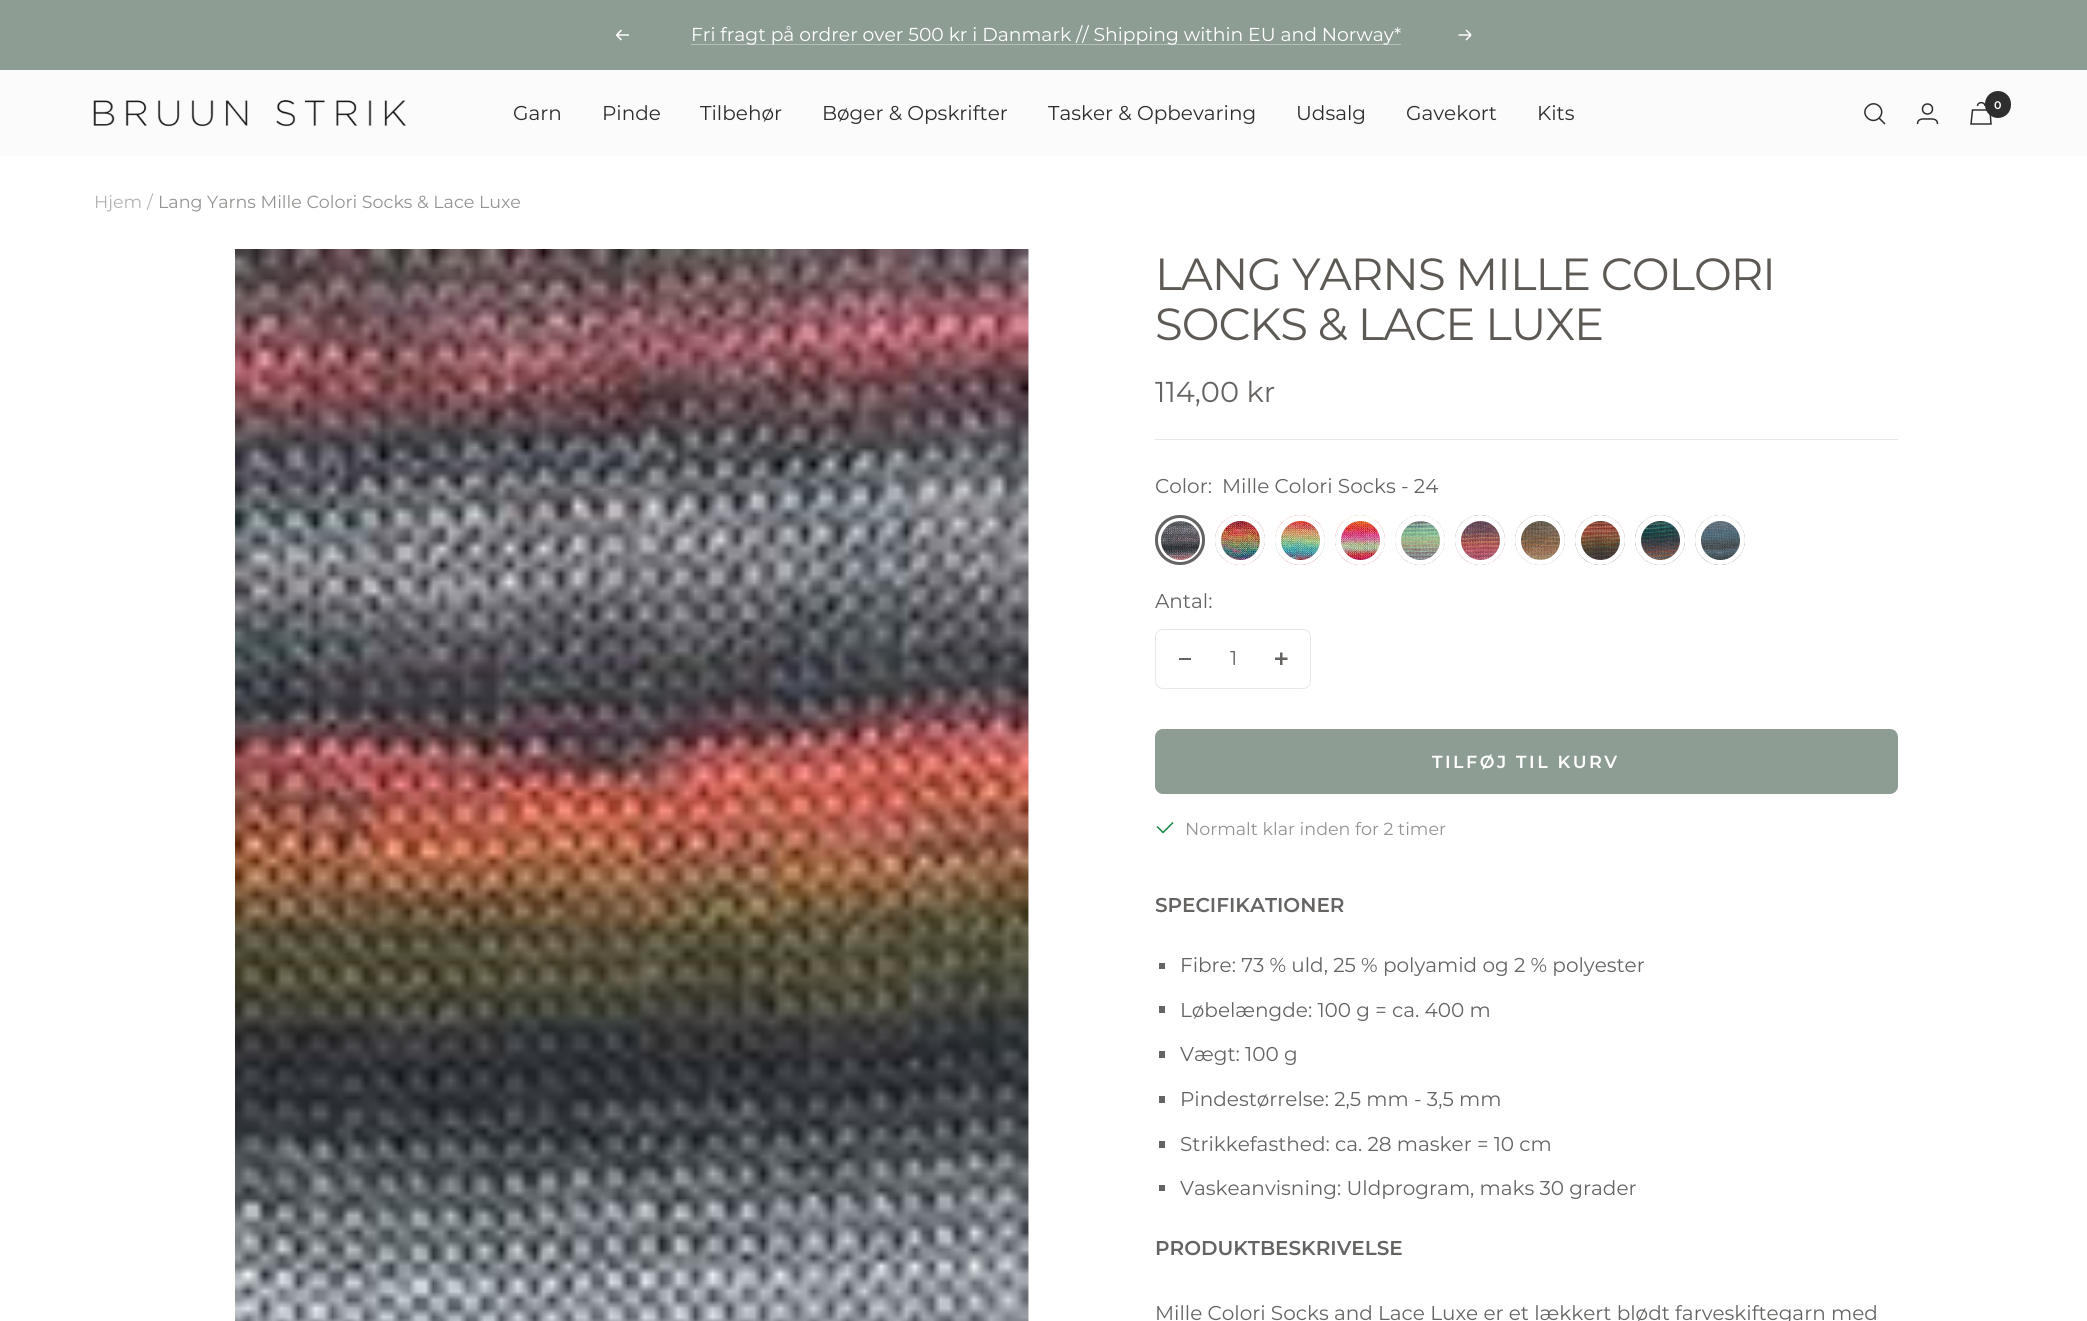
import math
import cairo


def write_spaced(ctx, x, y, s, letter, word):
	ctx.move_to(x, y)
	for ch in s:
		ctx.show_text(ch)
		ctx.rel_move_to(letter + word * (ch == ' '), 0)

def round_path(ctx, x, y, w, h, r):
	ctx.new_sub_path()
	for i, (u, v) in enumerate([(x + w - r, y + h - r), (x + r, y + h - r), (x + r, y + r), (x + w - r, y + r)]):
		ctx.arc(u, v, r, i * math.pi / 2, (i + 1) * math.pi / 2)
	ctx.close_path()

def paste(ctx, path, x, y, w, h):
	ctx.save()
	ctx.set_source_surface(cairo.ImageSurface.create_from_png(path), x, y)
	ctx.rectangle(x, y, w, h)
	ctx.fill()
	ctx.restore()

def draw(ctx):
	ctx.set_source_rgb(1, 1, 1)
	ctx.paint()
	ctx.set_source_rgb(0.553, 0.616, 0.58)
	ctx.rectangle(0, 0, 2087, 70)
	ctx.fill()
	ctx.new_path()
	ctx.move_to(629, 35)
	ctx.line_to(616.5, 35)
	ctx.move_to(616.5, 35)
	ctx.line_to(621.5, 40)
	ctx.move_to(616.5, 35)
	ctx.line_to(621.5, 30)
	ctx.set_source_rgb(1, 1, 1)
	ctx.set_line_width(1.5)
	ctx.stroke()
	ctx.set_source_rgb(0.71, 0.749, 0.725)
	ctx.rectangle(691, 44, 710, 1)
	ctx.fill()
	ctx.select_font_face('Montserrat')
	ctx.set_font_size(18.75)
	ctx.set_source_rgb(1, 1, 1)
	ctx.move_to(691, 41)
	ctx.show_text('Fri fragt på ordrer over 500 kr i Danmark // Shipping within EU and Norway*')
	ctx.new_path()
	ctx.move_to(1458.5, 35)
	ctx.line_to(1471, 35)
	ctx.move_to(1471, 35)
	ctx.line_to(1466, 40)
	ctx.move_to(1471, 35)
	ctx.line_to(1466, 30)
	ctx.stroke()
	ctx.set_source_rgb(0.984, 0.984, 0.984)
	ctx.rectangle(0, 70, 2087, 86)
	ctx.fill()
	paste(ctx, 'media/1.png', 93, 100, 313, 27)
	ctx.set_font_size(20)
	ctx.set_source_rgb(0.18, 0.18, 0.18)
	for x, y, s in [
		(513, 120, 'Garn'),
		(602, 120, 'Pinde'),
		(700, 120, 'Tilbehør'),
		(822, 120, 'Bøger & Opskrifter'),
		(1048, 120, 'Tasker & Opbevaring'),
		(1296, 120, 'Udsalg'),
		(1406, 120, 'Gavekort'),
		(1537, 120, 'Kits'),
	]:
		ctx.move_to(x, y)
		ctx.show_text(s)
	ctx.new_path()
	ctx.move_to(1879, 118)
	ctx.curve_to(1887, 110, 1875.5, 98.5, 1867.5, 106.5)
	ctx.curve_to(1859.5, 114, 1871.5, 125.5, 1879, 118)
	ctx.close_path()
	ctx.move_to(1879, 118)
	ctx.line_to(1885, 124)
	ctx.stroke()
	ctx.arc(1927.5, 109, 5, 0, 2 * math.pi)
	ctx.stroke()
	ctx.new_path()
	ctx.move_to(1917.5, 124)
	ctx.curve_to(1917.5, 118, 1923.5, 119, 1927.5, 119)
	ctx.curve_to(1931.5, 119, 1937.5, 118, 1937.5, 124)
	ctx.stroke()
	ctx.new_path()
	ctx.move_to(1972.5, 110)
	ctx.line_to(1990, 110)
	ctx.line_to(1991, 124)
	ctx.line_to(1971, 124)
	ctx.close_path()
	ctx.move_to(1985, 106)
	ctx.curve_to(1985, 101.5, 1977.5, 101.5, 1977.5, 106)
	ctx.stroke()
	round_path(ctx, 1985, 91, 26, 27, 13)
	ctx.fill()
	ctx.select_font_face('Montserrat SemiBold')
	ctx.set_font_size(11)
	ctx.set_source_rgb(1, 1, 1)
	ctx.move_to(1994, 109)
	ctx.show_text('0')
	ctx.select_font_face('Montserrat')
	ctx.set_font_size(17.5)
	ctx.set_source_rgb(0.706, 0.702, 0.698)
	ctx.move_to(94, 208)
	ctx.show_text('Hjem')
	ctx.move_to(147, 208)
	ctx.show_text('/')
	ctx.set_source_rgb(0.58, 0.576, 0.569)
	ctx.move_to(158, 208)
	ctx.show_text('Lang Yarns Mille Colori Socks & Lace Luxe')
	ctx.set_source_rgb(0.961, 0.961, 0.961)
	ctx.rectangle(1028, 249, 1, 1072)
	ctx.fill()
	paste(ctx, 'media/2.png', 235, 249, 794, 1072)
	ctx.set_source_rgb(0.91, 0.91, 0.906)
	ctx.rectangle(1155, 439, 743, 1)
	ctx.fill()
	ctx.set_font_size(45)
	ctx.set_source_rgb(0.365, 0.353, 0.333)
	write_spaced(ctx, 1155, 290, 'LANG YARNS MILLE COLORI', -1, 0)
	write_spaced(ctx, 1155, 340, 'SOCKS & LACE LUXE', -1, 0)
	ctx.set_font_size(28.75)
	ctx.set_source_rgb(0.4, 0.392, 0.384)
	ctx.move_to(1155, 402)
	ctx.show_text('114,00 kr')
	ctx.set_font_size(20)
	ctx.move_to(1155, 493)
	ctx.show_text('Color:')
	ctx.move_to(1222, 493)
	ctx.show_text('Mille Colori Socks - 24')
	paste(ctx, 'media/3.png', 1155, 515, 50, 50)
	ctx.arc(1180, 540, 23, 0, 2 * math.pi)
	ctx.set_source_rgb(1, 1, 1)
	ctx.set_line_width(4)
	ctx.stroke()
	ctx.arc(1180.5, 540.5, 21, 0, 2 * math.pi)
	ctx.set_line_width(3)
	ctx.stroke()
	ctx.arc(1180, 540, 23.5, 0, 2 * math.pi)
	ctx.set_source_rgb(0.4, 0.392, 0.384)
	ctx.stroke()
	paste(ctx, 'media/4.png', 1215, 515, 50, 50)
	ctx.arc(1240, 540, 23, 0, 2 * math.pi)
	ctx.set_source_rgb(1, 1, 1)
	ctx.set_line_width(4)
	ctx.stroke()
	ctx.arc(1240.5, 540.5, 21, 0, 2 * math.pi)
	ctx.set_line_width(3)
	ctx.stroke()
	paste(ctx, 'media/5.png', 1275, 515, 50, 50)
	ctx.arc(1300, 540, 23, 0, 2 * math.pi)
	ctx.set_line_width(4)
	ctx.stroke()
	ctx.arc(1300.5, 540.5, 21, 0, 2 * math.pi)
	ctx.set_line_width(3)
	ctx.stroke()
	paste(ctx, 'media/6.png', 1335, 515, 50, 50)
	ctx.arc(1360, 540, 23, 0, 2 * math.pi)
	ctx.set_line_width(4)
	ctx.stroke()
	ctx.arc(1360.5, 540.5, 21, 0, 2 * math.pi)
	ctx.set_line_width(3)
	ctx.stroke()
	paste(ctx, 'media/7.png', 1395, 515, 50, 50)
	ctx.arc(1420, 540, 23, 0, 2 * math.pi)
	ctx.set_line_width(4)
	ctx.stroke()
	ctx.arc(1420.5, 540.5, 21, 0, 2 * math.pi)
	ctx.set_line_width(3)
	ctx.stroke()
	paste(ctx, 'media/8.png', 1455, 515, 50, 50)
	ctx.arc(1480, 540, 23, 0, 2 * math.pi)
	ctx.set_line_width(4)
	ctx.stroke()
	ctx.arc(1480.5, 540.5, 21, 0, 2 * math.pi)
	ctx.set_line_width(3)
	ctx.stroke()
	paste(ctx, 'media/9.png', 1515, 515, 50, 50)
	ctx.arc(1540, 540, 23, 0, 2 * math.pi)
	ctx.set_line_width(4)
	ctx.stroke()
	ctx.arc(1540.5, 540.5, 21, 0, 2 * math.pi)
	ctx.set_line_width(3)
	ctx.stroke()
	paste(ctx, 'media/10.png', 1575, 515, 50, 50)
	ctx.arc(1600, 540, 23, 0, 2 * math.pi)
	ctx.set_line_width(4)
	ctx.stroke()
	ctx.arc(1600.5, 540.5, 21, 0, 2 * math.pi)
	ctx.set_line_width(3)
	ctx.stroke()
	paste(ctx, 'media/11.png', 1635, 515, 50, 50)
	ctx.arc(1660, 540, 23, 0, 2 * math.pi)
	ctx.set_line_width(4)
	ctx.stroke()
	ctx.arc(1660.5, 540.5, 21, 0, 2 * math.pi)
	ctx.set_line_width(3)
	ctx.stroke()
	paste(ctx, 'media/12.png', 1695, 515, 50, 50)
	ctx.arc(1720, 540, 23, 0, 2 * math.pi)
	ctx.set_line_width(4)
	ctx.stroke()
	ctx.arc(1720.5, 540.5, 21, 0, 2 * math.pi)
	ctx.set_line_width(3)
	ctx.stroke()
	ctx.set_source_rgb(0.4, 0.392, 0.384)
	ctx.move_to(1155, 608)
	ctx.show_text('Antal:')
	round_path(ctx, 1155.5, 629.5, 155, 59, 7.5)
	ctx.set_source_rgb(0.91, 0.91, 0.906)
	ctx.set_line_width(1)
	ctx.stroke()
	ctx.set_source_rgb(0.4, 0.392, 0.384)
	ctx.rectangle(1179, 658, 12, 2)
	ctx.fill()
	ctx.move_to(1230, 665)
	ctx.show_text('1')
	paste(ctx, 'media/13.png', 1275, 652, 13, 13)
	ctx.set_source_rgb(0.553, 0.616, 0.58)
	round_path(ctx, 1155, 729, 743, 65, 8)
	ctx.fill()
	ctx.select_font_face('Montserrat SemiBold')
	ctx.set_font_size(17.5)
	ctx.set_source_rgb(1, 1, 1)
	write_spaced(ctx, 1432, 768, 'TILFØJ TIL KURV', 2.5, 0)
	ctx.new_path()
	ctx.move_to(1157, 826.5)
	ctx.line_to(1163, 832.5)
	ctx.line_to(1173, 822.5)
	ctx.set_source_rgb(0.086, 0.514, 0.259)
	ctx.set_line_width(1.5)
	ctx.stroke()
	ctx.select_font_face('Montserrat')
	ctx.set_source_rgb(0.58, 0.576, 0.569)
	ctx.move_to(1185, 835)
	ctx.show_text('Normalt klar inden for 2 timer')
	ctx.select_font_face('Montserrat SemiBold')
	ctx.set_font_size(20)
	ctx.set_source_rgb(0.4, 0.392, 0.384)
	ctx.move_to(1155, 912)
	ctx.show_text('SPECIFIKATIONER')
	ctx.rectangle(1159, 963, 6, 6)
	ctx.fill()
	ctx.select_font_face('Montserrat')
	ctx.move_to(1180, 972)
	ctx.show_text('Fibre: 73 % uld, 25 % polyamid og 2 % polyester')
	ctx.rectangle(1159, 1006, 6, 7)
	ctx.fill()
	ctx.move_to(1180, 1017)
	ctx.show_text('Løbelængde: 100 g = ca. 400 m')
	ctx.rectangle(1159, 1051, 6, 7)
	ctx.fill()
	ctx.move_to(1180, 1061)
	ctx.show_text('Vægt: 100 g')
	ctx.rectangle(1159, 1096, 6, 7)
	ctx.fill()
	ctx.move_to(1180, 1106)
	ctx.show_text('Pindestørrelse: 2,5 mm - 3,5 mm')
	ctx.rectangle(1159, 1141, 6, 7)
	ctx.fill()
	ctx.move_to(1180, 1151)
	ctx.show_text('Strikkefasthed: ca. 28 masker = 10 cm')
	ctx.rectangle(1159, 1185, 6, 6)
	ctx.fill()
	ctx.move_to(1180, 1195)
	ctx.show_text('Vaskeanvisning: Uldprogram, maks 30 grader')
	ctx.select_font_face('Montserrat SemiBold')
	ctx.move_to(1155, 1255)
	ctx.show_text('PRODUKTBESKRIVELSE')
	ctx.select_font_face('Montserrat')
	ctx.move_to(1155, 1320)
	ctx.show_text('Mille Colori Socks and Lace Luxe er et lækkert blødt farveskiftegarn med')


surface = cairo.ImageSurface(cairo.FORMAT_RGB24, 2087, 1321)
ctx = cairo.Context(surface)
options = cairo.FontOptions()
options.set_hint_metrics(cairo.HINT_METRICS_OFF)
options.set_hint_style(cairo.HINT_STYLE_NONE)
ctx.set_font_options(options)
ctx.set_miter_limit(4)
draw(ctx)
surface.write_to_png('image.png')
